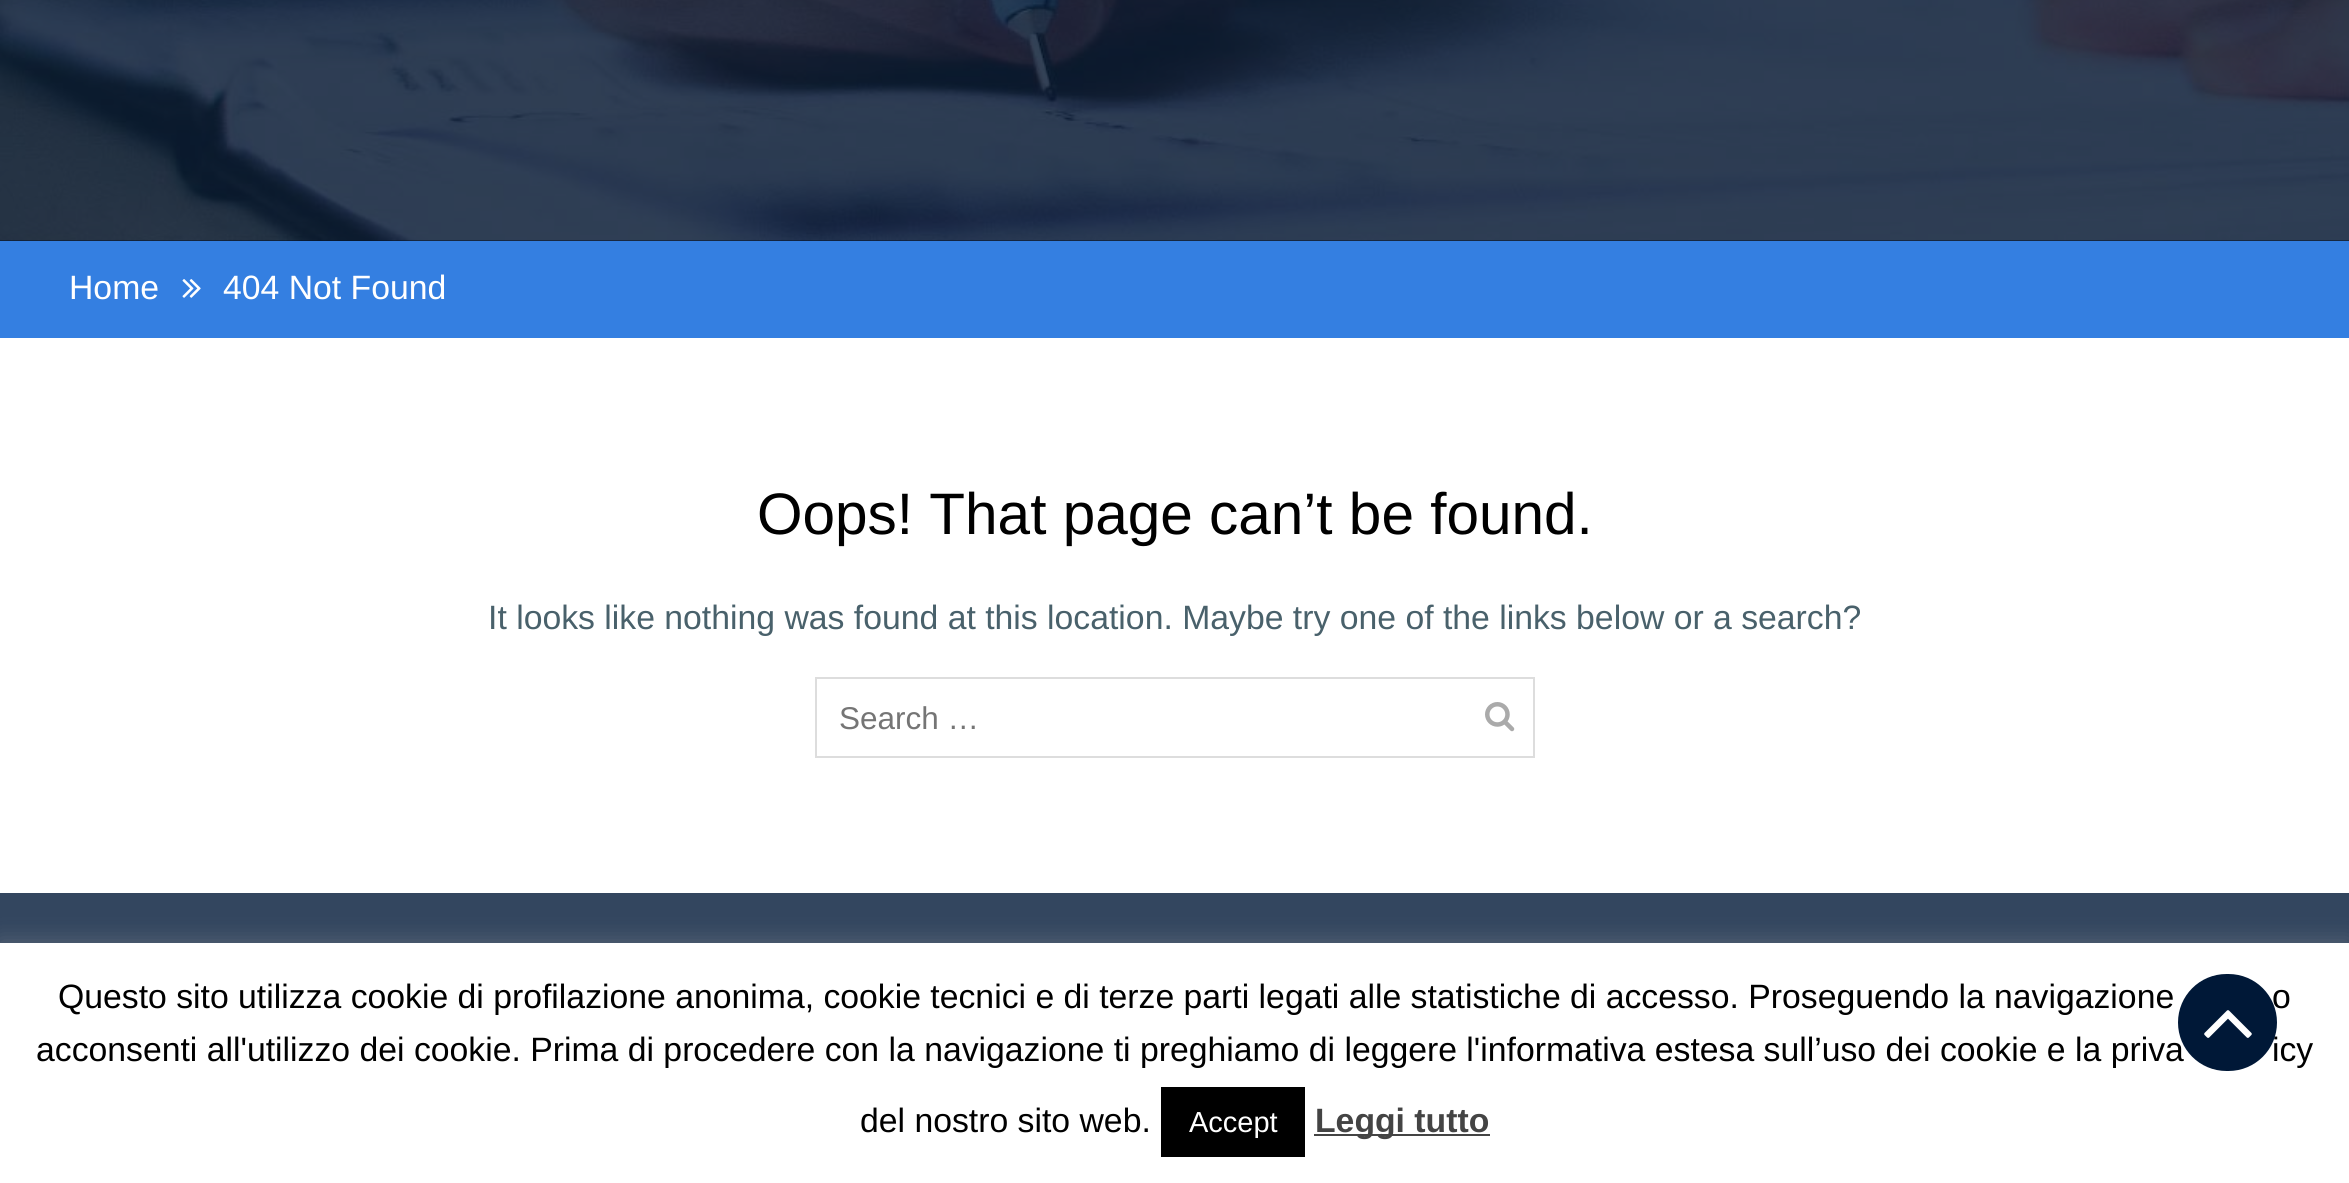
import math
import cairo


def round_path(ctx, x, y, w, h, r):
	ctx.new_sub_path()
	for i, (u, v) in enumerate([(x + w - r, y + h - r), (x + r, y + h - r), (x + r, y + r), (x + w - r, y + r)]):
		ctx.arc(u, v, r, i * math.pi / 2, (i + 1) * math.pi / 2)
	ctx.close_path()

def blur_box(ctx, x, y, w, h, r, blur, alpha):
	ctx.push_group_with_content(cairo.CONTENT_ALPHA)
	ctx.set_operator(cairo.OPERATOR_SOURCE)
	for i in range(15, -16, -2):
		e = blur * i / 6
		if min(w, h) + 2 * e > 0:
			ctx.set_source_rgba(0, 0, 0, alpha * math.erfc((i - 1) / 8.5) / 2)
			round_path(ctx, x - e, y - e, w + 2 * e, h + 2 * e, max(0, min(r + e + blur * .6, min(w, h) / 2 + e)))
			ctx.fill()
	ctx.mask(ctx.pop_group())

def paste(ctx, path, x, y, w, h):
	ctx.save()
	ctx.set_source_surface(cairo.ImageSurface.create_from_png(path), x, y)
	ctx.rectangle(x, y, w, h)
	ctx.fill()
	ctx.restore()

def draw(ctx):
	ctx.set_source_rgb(1, 1, 1)
	ctx.paint()
	ctx.set_source_rgb(0, 0.075, 0.173)
	ctx.rectangle(0, 240, 2349, 1)
	ctx.fill()
	paste(ctx, 'media/1.png', 0, 0, 2349, 241)
	ctx.set_source_rgb(0.204, 0.498, 0.882)
	ctx.rectangle(0, 241, 2349, 97)
	ctx.fill()
	ctx.select_font_face('Liberation Sans')
	ctx.set_font_size(33.75)
	ctx.set_source_rgb(1, 1, 1)
	ctx.move_to(69, 299)
	ctx.show_text('Home')
	paste(ctx, 'media/2.png', 182, 279, 19, 19)
	ctx.move_to(223, 299)
	ctx.show_text('404 Not Found')
	ctx.set_font_size(58.5)
	ctx.set_source_rgb(0, 0, 0)
	ctx.move_to(757, 534)
	ctx.show_text('Oops! That page can’t be found.')
	ctx.set_font_size(33.75)
	ctx.set_source_rgb(0.286, 0.38, 0.42)
	ctx.move_to(488, 629)
	ctx.show_text('It looks like nothing was found at this location. Maybe try one of the links below or a search?')
	ctx.rectangle(816, 678, 718, 79)
	ctx.set_source_rgb(0.867, 0.867, 0.867)
	ctx.stroke()
	ctx.set_font_size(31.5)
	ctx.set_source_rgb(0.459, 0.459, 0.459)
	ctx.move_to(839, 729)
	ctx.show_text('Search …')
	paste(ctx, 'media/3.png', 1485, 702, 30, 30)
	ctx.set_source_rgb(0.2, 0.275, 0.373)
	ctx.rectangle(0, 893, 2349, 50)
	ctx.fill()
	ctx.set_source_rgb(0.675, 0.671, 0.671)
	blur_box(ctx, 0, 941, 2349, 240, 0, 11, 0.3)
	ctx.set_source_rgb(1, 1, 1)
	ctx.rectangle(0, 943, 2349, 240)
	ctx.fill()
	ctx.set_font_size(33.75)
	ctx.set_source_rgb(0, 0, 0)
	for x, y, s in [
		(2272, 1008, 'o'),
		(36, 1061, 'acconsenti all\'utilizzo dei cookie. Prima di procedere con la navigazione ti preghiamo di leggere l\'informativa estesa sull’uso dei cookie e la priva'),
		(2272, 1061, 'icy'),
	]:
		ctx.move_to(x, y)
		ctx.show_text(s)
	ctx.set_source_rgb(0, 0.094, 0.216)
	round_path(ctx, 2178, 974, 99, 97, 48.5)
	ctx.fill()
	paste(ctx, 'media/4.png', 2204, 1010, 48, 28)
	ctx.set_source_rgb(0, 0, 0)
	ctx.move_to(58, 1008)
	ctx.show_text('Questo sito utilizza cookie di profilazione anonima, cookie tecnici e di terze parti legati alle statistiche di accesso. Proseguendo la navigazione')
	ctx.move_to(860, 1132)
	ctx.show_text('del nostro sito web.')
	ctx.rectangle(1161, 1087, 144, 70)
	ctx.fill()
	ctx.set_font_size(29)
	ctx.set_source_rgb(1, 1, 1)
	ctx.move_to(1189, 1132)
	ctx.show_text('Accept')
	ctx.set_source_rgb(0.267, 0.267, 0.267)
	ctx.rectangle(1314, 1134, 176, 2)
	ctx.fill()
	ctx.select_font_face('Liberation Sans', cairo.FONT_SLANT_NORMAL, cairo.FONT_WEIGHT_BOLD)
	ctx.set_font_size(33.75)
	ctx.move_to(1315, 1132)
	ctx.show_text('Leggi tutto')


surface = cairo.ImageSurface(cairo.FORMAT_RGB24, 2349, 1183)
ctx = cairo.Context(surface)
options = cairo.FontOptions()
options.set_hint_metrics(cairo.HINT_METRICS_OFF)
options.set_hint_style(cairo.HINT_STYLE_NONE)
ctx.set_font_options(options)
ctx.set_miter_limit(4)
draw(ctx)
surface.write_to_png('image.png')
